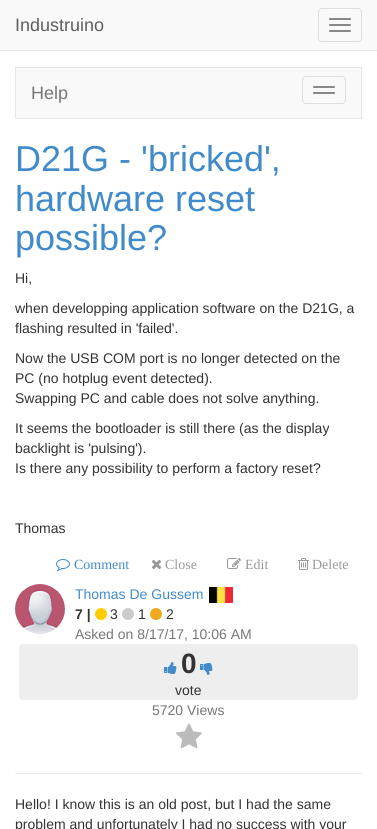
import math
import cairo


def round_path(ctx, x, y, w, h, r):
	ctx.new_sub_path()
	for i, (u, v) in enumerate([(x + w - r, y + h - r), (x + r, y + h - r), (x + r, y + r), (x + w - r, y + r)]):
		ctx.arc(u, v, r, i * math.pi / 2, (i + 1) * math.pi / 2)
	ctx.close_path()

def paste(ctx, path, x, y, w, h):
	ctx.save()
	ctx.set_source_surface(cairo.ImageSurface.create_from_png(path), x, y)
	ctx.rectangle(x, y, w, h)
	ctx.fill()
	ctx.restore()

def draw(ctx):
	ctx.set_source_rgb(1, 1, 1)
	ctx.paint()
	ctx.set_source_rgb(0.973, 0.973, 0.973)
	ctx.rectangle(0, 0, 377, 50)
	ctx.fill()
	ctx.set_source_rgb(0.906, 0.906, 0.906)
	ctx.rectangle(0, 50, 377, 1)
	ctx.fill()
	ctx.select_font_face('Liberation Sans')
	ctx.set_font_size(18)
	ctx.set_source_rgb(0.369, 0.369, 0.369)
	ctx.move_to(15, 31)
	ctx.show_text('Industruino')
	round_path(ctx, 318.5, 8.5, 43, 33, 3.5)
	ctx.set_source_rgb(0.867, 0.867, 0.867)
	ctx.set_line_width(1)
	ctx.stroke()
	ctx.set_source_rgb(0.533, 0.533, 0.533)
	round_path(ctx, 329, 18, 22, 2, 1)
	ctx.fill()
	round_path(ctx, 329, 24, 22, 2, 1)
	ctx.fill()
	round_path(ctx, 329, 30, 22, 2, 1)
	ctx.fill()
	ctx.set_source_rgb(0.973, 0.973, 0.973)
	ctx.rectangle(15.5, 67.5, 346, 51)
	ctx.fill_preserve()
	ctx.set_source_rgb(0.906, 0.906, 0.906)
	ctx.stroke()
	ctx.set_source_rgb(0.467, 0.467, 0.467)
	ctx.move_to(31, 99)
	ctx.show_text('Help')
	round_path(ctx, 302.5, 76.5, 43, 27, 3.5)
	ctx.set_source_rgb(0.867, 0.867, 0.867)
	ctx.stroke()
	ctx.set_source_rgb(0.533, 0.533, 0.533)
	round_path(ctx, 313, 86, 22, 2, 1)
	ctx.fill()
	round_path(ctx, 313, 92, 22, 2, 1)
	ctx.fill()
	ctx.set_font_size(36)
	ctx.set_source_rgb(0.259, 0.545, 0.792)
	for x, y, s in [
		(15, 171, 'D21G - \'bricked\','),
		(15, 211, 'hardware reset'),
		(15, 250, 'possible?'),
	]:
		ctx.move_to(x, y)
		ctx.show_text(s)
	ctx.set_font_size(14)
	ctx.set_source_rgb(0.2, 0.2, 0.2)
	for x, y, s in [
		(15, 283, 'Hi,'),
		(15, 313, 'when developping application software on the D21G, a'),
		(15, 333, 'flashing resulted in \'failed\'.'),
		(15, 363, 'Now the USB COM port is no longer detected on the'),
		(15, 383, 'PC (no hotplug event detected).'),
		(15, 403, 'Swapping PC and cable does not solve anything.'),
		(15, 433, 'It seems the bootloader is still there (as the display'),
		(15, 453, 'backlight is \'pulsing\').'),
		(15, 473, 'Is there any possibility to perform a factory reset?'),
		(15, 533, 'Thomas'),
	]:
		ctx.move_to(x, y)
		ctx.show_text(s)
	paste(ctx, 'media/1.png', 56, 559, 14, 12)
	ctx.select_font_face('Liberation Serif')
	ctx.set_source_rgb(0.259, 0.545, 0.792)
	ctx.move_to(74, 569)
	ctx.show_text('Comment')
	paste(ctx, 'media/2.png', 151, 559, 11, 11)
	ctx.set_source_rgb(0.6, 0.6, 0.6)
	ctx.move_to(165, 569)
	ctx.show_text('Close')
	paste(ctx, 'media/3.png', 227, 558, 14, 11)
	ctx.move_to(245, 569)
	ctx.show_text('Edit')
	paste(ctx, 'media/4.png', 298, 558, 11, 12)
	ctx.move_to(312, 569)
	ctx.show_text('Delete')
	paste(ctx, 'media/5.png', 15, 584, 50, 50)
	ctx.select_font_face('Liberation Sans')
	ctx.set_source_rgb(0.259, 0.545, 0.792)
	ctx.move_to(75, 599)
	ctx.show_text('Thomas De Gussem')
	paste(ctx, 'media/6.png', 209, 587, 24, 16)
	ctx.select_font_face('Liberation Sans', cairo.FONT_SLANT_NORMAL, cairo.FONT_WEIGHT_BOLD)
	ctx.set_source_rgb(0.2, 0.2, 0.2)
	ctx.move_to(75, 619)
	ctx.show_text('7 |')
	paste(ctx, 'media/7.png', 95, 608, 12, 12)
	ctx.select_font_face('Liberation Sans')
	ctx.move_to(110, 619)
	ctx.show_text('3')
	paste(ctx, 'media/8.png', 122, 608, 12, 12)
	ctx.move_to(138, 619)
	ctx.show_text('1')
	paste(ctx, 'media/9.png', 150, 608, 12, 12)
	ctx.move_to(166, 619)
	ctx.show_text('2')
	ctx.set_source_rgb(0.467, 0.467, 0.467)
	ctx.move_to(75, 639)
	ctx.show_text('Asked on 8/17/17, 10:06 AM')
	ctx.set_source_rgb(0.933, 0.933, 0.933)
	round_path(ctx, 19, 644, 339, 56, 4)
	ctx.fill()
	paste(ctx, 'media/10.png', 164, 662, 13, 12)
	ctx.select_font_face('Liberation Sans', cairo.FONT_SLANT_NORMAL, cairo.FONT_WEIGHT_BOLD)
	ctx.set_font_size(28)
	ctx.set_source_rgb(0.2, 0.2, 0.2)
	ctx.move_to(181, 673)
	ctx.show_text('0')
	paste(ctx, 'media/11.png', 200, 663, 13, 12)
	ctx.select_font_face('Liberation Sans')
	ctx.set_font_size(14)
	ctx.move_to(175, 695)
	ctx.show_text('vote')
	ctx.set_source_rgb(0.467, 0.467, 0.467)
	ctx.move_to(152, 715)
	ctx.show_text('5720 Views')
	paste(ctx, 'media/12.png', 176, 723, 26, 26)
	ctx.set_source_rgb(0.933, 0.933, 0.933)
	ctx.rectangle(15, 773, 347, 1)
	ctx.fill()
	ctx.set_source_rgb(0.2, 0.2, 0.2)
	ctx.move_to(15, 809)
	ctx.show_text('Hello! I know this is an old post, but I had the same')
	ctx.move_to(15, 829)
	ctx.show_text('problem and unfortunately I had no success with your')


surface = cairo.ImageSurface(cairo.FORMAT_RGB24, 377, 829)
ctx = cairo.Context(surface)
options = cairo.FontOptions()
options.set_hint_metrics(cairo.HINT_METRICS_OFF)
options.set_hint_style(cairo.HINT_STYLE_NONE)
ctx.set_font_options(options)
ctx.set_miter_limit(4)
draw(ctx)
surface.write_to_png('image.png')
